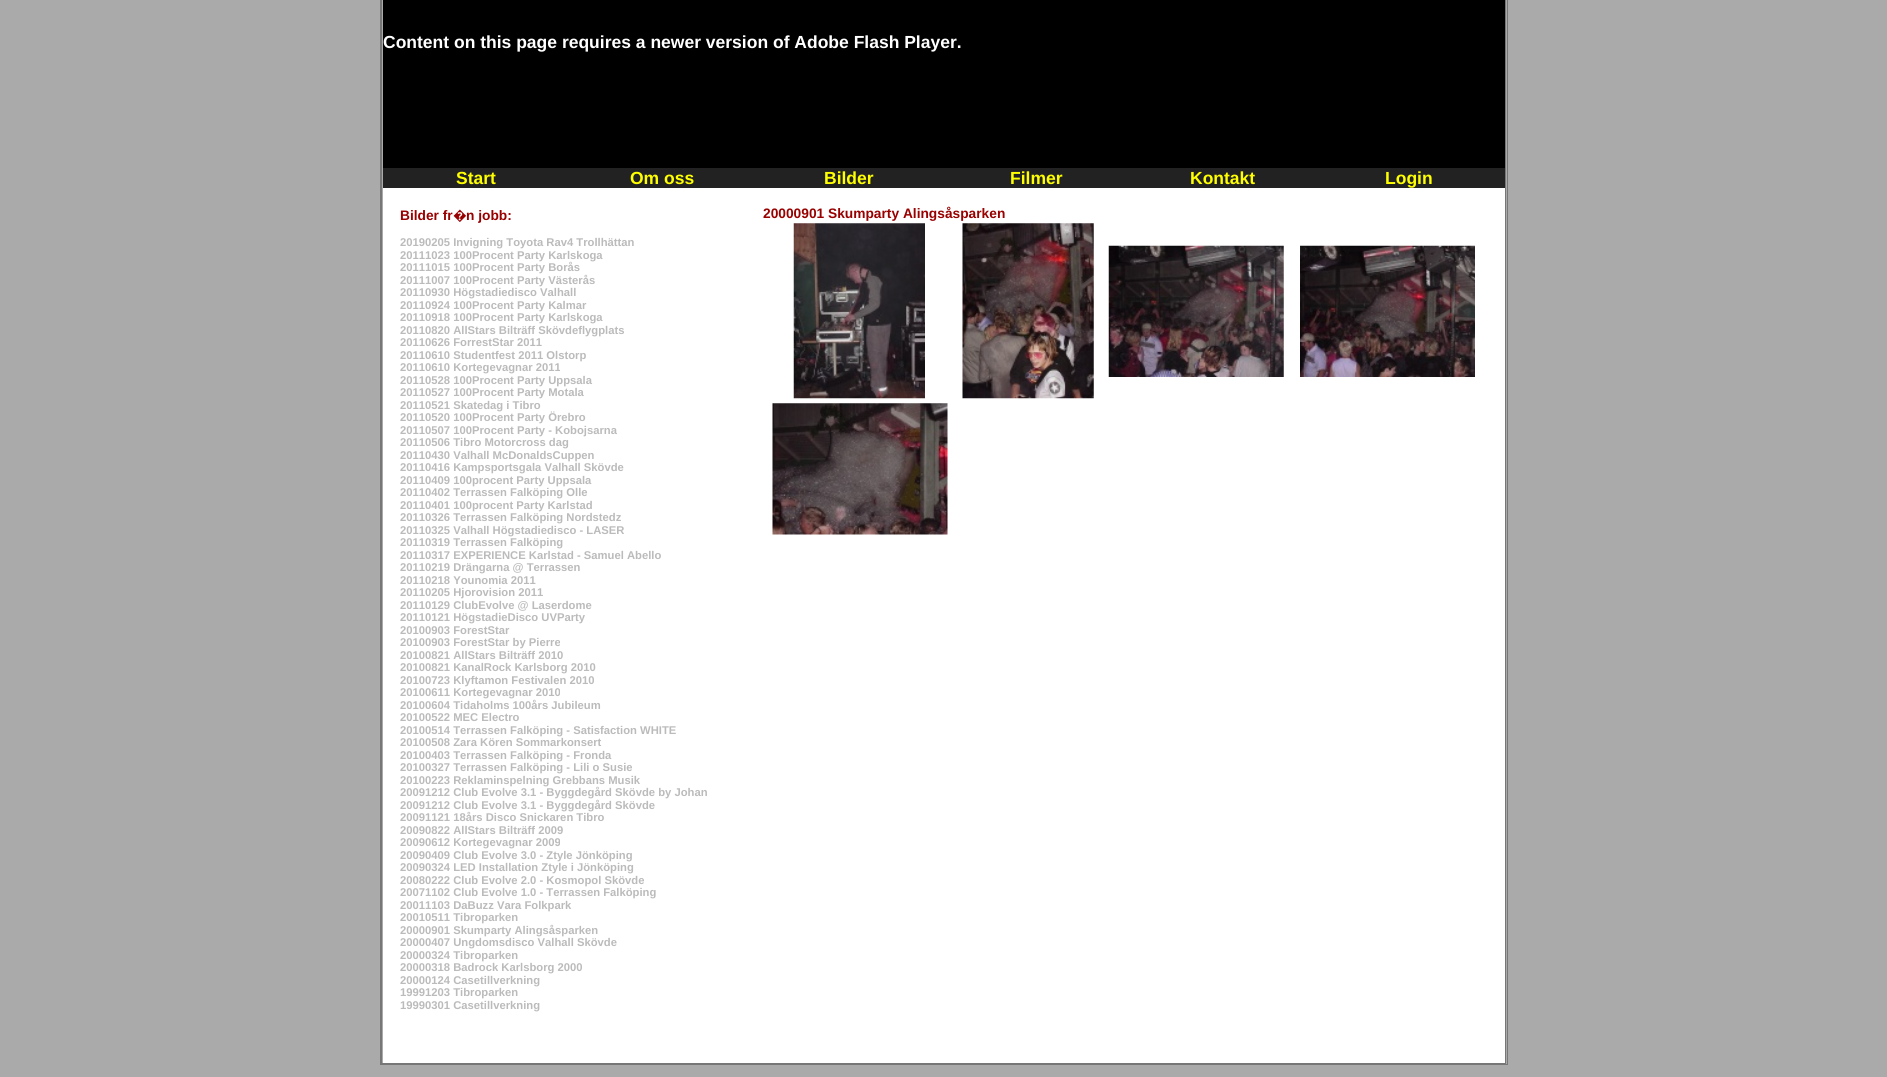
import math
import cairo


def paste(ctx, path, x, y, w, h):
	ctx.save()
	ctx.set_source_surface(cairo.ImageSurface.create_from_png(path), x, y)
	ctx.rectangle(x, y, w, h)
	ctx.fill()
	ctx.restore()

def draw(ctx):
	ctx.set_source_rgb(0.667, 0.667, 0.667)
	ctx.paint()
	ctx.rectangle(380.5, -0.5, 1127, 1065)
	ctx.set_source_rgb(0.467, 0.467, 0.467)
	ctx.set_line_width(1)
	ctx.stroke()
	ctx.rectangle(381.5, -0.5, 1124, 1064)
	ctx.stroke()
	ctx.set_source_rgb(0, 0, 0)
	ctx.rectangle(383, 0, 1122, 168)
	ctx.fill()
	ctx.select_font_face('Liberation Sans', cairo.FONT_SLANT_NORMAL, cairo.FONT_WEIGHT_BOLD)
	ctx.set_font_size(17.5)
	ctx.set_source_rgb(1, 1, 1)
	ctx.move_to(383, 48)
	ctx.show_text('Content on this page requires a newer version of Adobe Flash Player.')
	ctx.set_source_rgb(0.133, 0.133, 0.133)
	ctx.rectangle(383, 168, 1122, 20)
	ctx.fill()
	ctx.set_source_rgb(1, 1, 0)
	for x, y, s in [
		(456, 184, 'Start'),
		(630, 184, 'Om oss'),
		(824, 184, 'Bilder'),
		(1010, 184, 'Filmer'),
		(1190, 184, 'Kontakt'),
		(1385, 184, 'Login'),
	]:
		ctx.move_to(x, y)
		ctx.show_text(s)
	ctx.set_source_rgb(1, 1, 1)
	ctx.rectangle(383, 188, 1122, 875)
	ctx.fill()
	ctx.set_font_size(13.75)
	ctx.set_source_rgb(0.6, 0, 0)
	ctx.move_to(400, 220)
	ctx.show_text('Bilder fr')
	ctx.select_font_face('Noto Sans', cairo.FONT_SLANT_NORMAL, cairo.FONT_WEIGHT_BOLD)
	ctx.move_to(453, 220)
	ctx.show_text('�')
	ctx.select_font_face('Liberation Sans', cairo.FONT_SLANT_NORMAL, cairo.FONT_WEIGHT_BOLD)
	ctx.move_to(466, 220)
	ctx.show_text('n jobb:')
	ctx.set_font_size(11.25)
	ctx.set_source_rgb(0.733, 0.733, 0.733)
	for x, y, s in [
		(400, 246, '20190205 Invigning Toyota Rav4 Trollhättan'),
		(400, 259, '20111023 100Procent Party Karlskoga'),
		(400, 271, '20111015 100Procent Party Borås'),
		(400, 284, '20111007 100Procent Party Västerås'),
		(400, 296, '20110930 Högstadiedisco Valhall'),
		(400, 309, '20110924 100Procent Party Kalmar'),
		(400, 321, '20110918 100Procent Party Karlskoga'),
		(400, 334, '20110820 AllStars Bilträff Skövdeflygplats'),
		(400, 346, '20110626 ForrestStar 2011'),
		(400, 359, '20110610 Studentfest 2011 Olstorp'),
		(400, 371, '20110610 Kortegevagnar 2011'),
		(400, 384, '20110528 100Procent Party Uppsala'),
		(400, 396, '20110527 100Procent Party Motala'),
		(400, 409, '20110521 Skatedag i Tibro'),
		(400, 421, '20110520 100Procent Party Örebro'),
		(400, 434, '20110507 100Procent Party - Kobojsarna'),
		(400, 446, '20110506 Tibro Motorcross dag'),
		(400, 459, '20110430 Valhall McDonaldsCuppen'),
		(400, 471, '20110416 Kampsportsgala Valhall Skövde'),
		(400, 484, '20110409 100procent Party Uppsala'),
		(400, 496, '20110402 Terrassen Falköping Olle'),
		(400, 509, '20110401 100procent Party Karlstad'),
		(400, 521, '20110326 Terrassen Falköping Nordstedz'),
		(400, 534, '20110325 Valhall Högstadiedisco - LASER'),
		(400, 546, '20110319 Terrassen Falköping'),
		(400, 559, '20110317 EXPERIENCE Karlstad - Samuel Abello'),
		(400, 571, '20110219 Drängarna @ Terrassen'),
		(400, 584, '20110218 Younomia 2011'),
		(400, 596, '20110205 Hjorovision 2011'),
		(400, 609, '20110129 ClubEvolve @ Laserdome'),
		(400, 621, '20110121 HögstadieDisco UVParty'),
		(400, 634, '20100903 ForestStar'),
		(400, 646, '20100903 ForestStar by Pierre'),
		(400, 659, '20100821 AllStars Bilträff 2010'),
		(400, 671, '20100821 KanalRock Karlsborg 2010'),
		(400, 684, '20100723 Klyftamon Festivalen 2010'),
		(400, 696, '20100611 Kortegevagnar 2010'),
		(400, 709, '20100604 Tidaholms 100års Jubileum'),
		(400, 721, '20100522 MEC Electro'),
		(400, 734, '20100514 Terrassen Falköping - Satisfaction WHITE'),
		(400, 746, '20100508 Zara Kören Sommarkonsert'),
		(400, 759, '20100403 Terrassen Falköping - Fronda'),
		(400, 771, '20100327 Terrassen Falköping - Lili o Susie'),
		(400, 784, '20100223 Reklaminspelning Grebbans Musik'),
		(400, 796, '20091212 Club Evolve 3.1 - Byggdegård Skövde by Johan'),
		(400, 809, '20091212 Club Evolve 3.1 - Byggdegård Skövde'),
		(400, 821, '20091121 18års Disco Snickaren Tibro'),
		(400, 834, '20090822 AllStars Bilträff 2009'),
		(400, 846, '20090612 Kortegevagnar 2009'),
		(400, 859, '20090409 Club Evolve 3.0 - Ztyle Jönköping'),
		(400, 871, '20090324 LED Installation Ztyle i Jönköping'),
		(400, 884, '20080222 Club Evolve 2.0 - Kosmopol Skövde'),
		(400, 896, '20071102 Club Evolve 1.0 - Terrassen Falköping'),
		(400, 909, '20011103 DaBuzz Vara Folkpark'),
		(400, 921, '20010511 Tibroparken'),
		(400, 934, '20000901 Skumparty Alingsåsparken'),
		(400, 946, '20000407 Ungdomsdisco Valhall Skövde'),
		(400, 959, '20000324 Tibroparken'),
		(400, 971, '20000318 Badrock Karlsborg 2000'),
		(400, 984, '20000124 Casetillverkning'),
		(400, 996, '19991203 Tibroparken'),
		(400, 1009, '19990301 Casetillverkning'),
	]:
		ctx.move_to(x, y)
		ctx.show_text(s)
	ctx.set_font_size(13.75)
	ctx.set_source_rgb(0.6, 0, 0)
	ctx.move_to(763, 218)
	ctx.show_text('20000901 Skumparty Alingsåsparken')
	paste(ctx, 'media/1.png', 793, 223, 132, 176)
	paste(ctx, 'media/2.png', 962, 223, 132, 176)
	paste(ctx, 'media/3.png', 1108, 245, 176, 132)
	paste(ctx, 'media/4.png', 1300, 245, 175, 132)
	paste(ctx, 'media/5.png', 772, 403, 176, 132)


surface = cairo.ImageSurface(cairo.FORMAT_RGB24, 1887, 1077)
ctx = cairo.Context(surface)
options = cairo.FontOptions()
options.set_hint_metrics(cairo.HINT_METRICS_OFF)
options.set_hint_style(cairo.HINT_STYLE_NONE)
ctx.set_font_options(options)
ctx.set_miter_limit(4)
draw(ctx)
surface.write_to_png('image.png')
